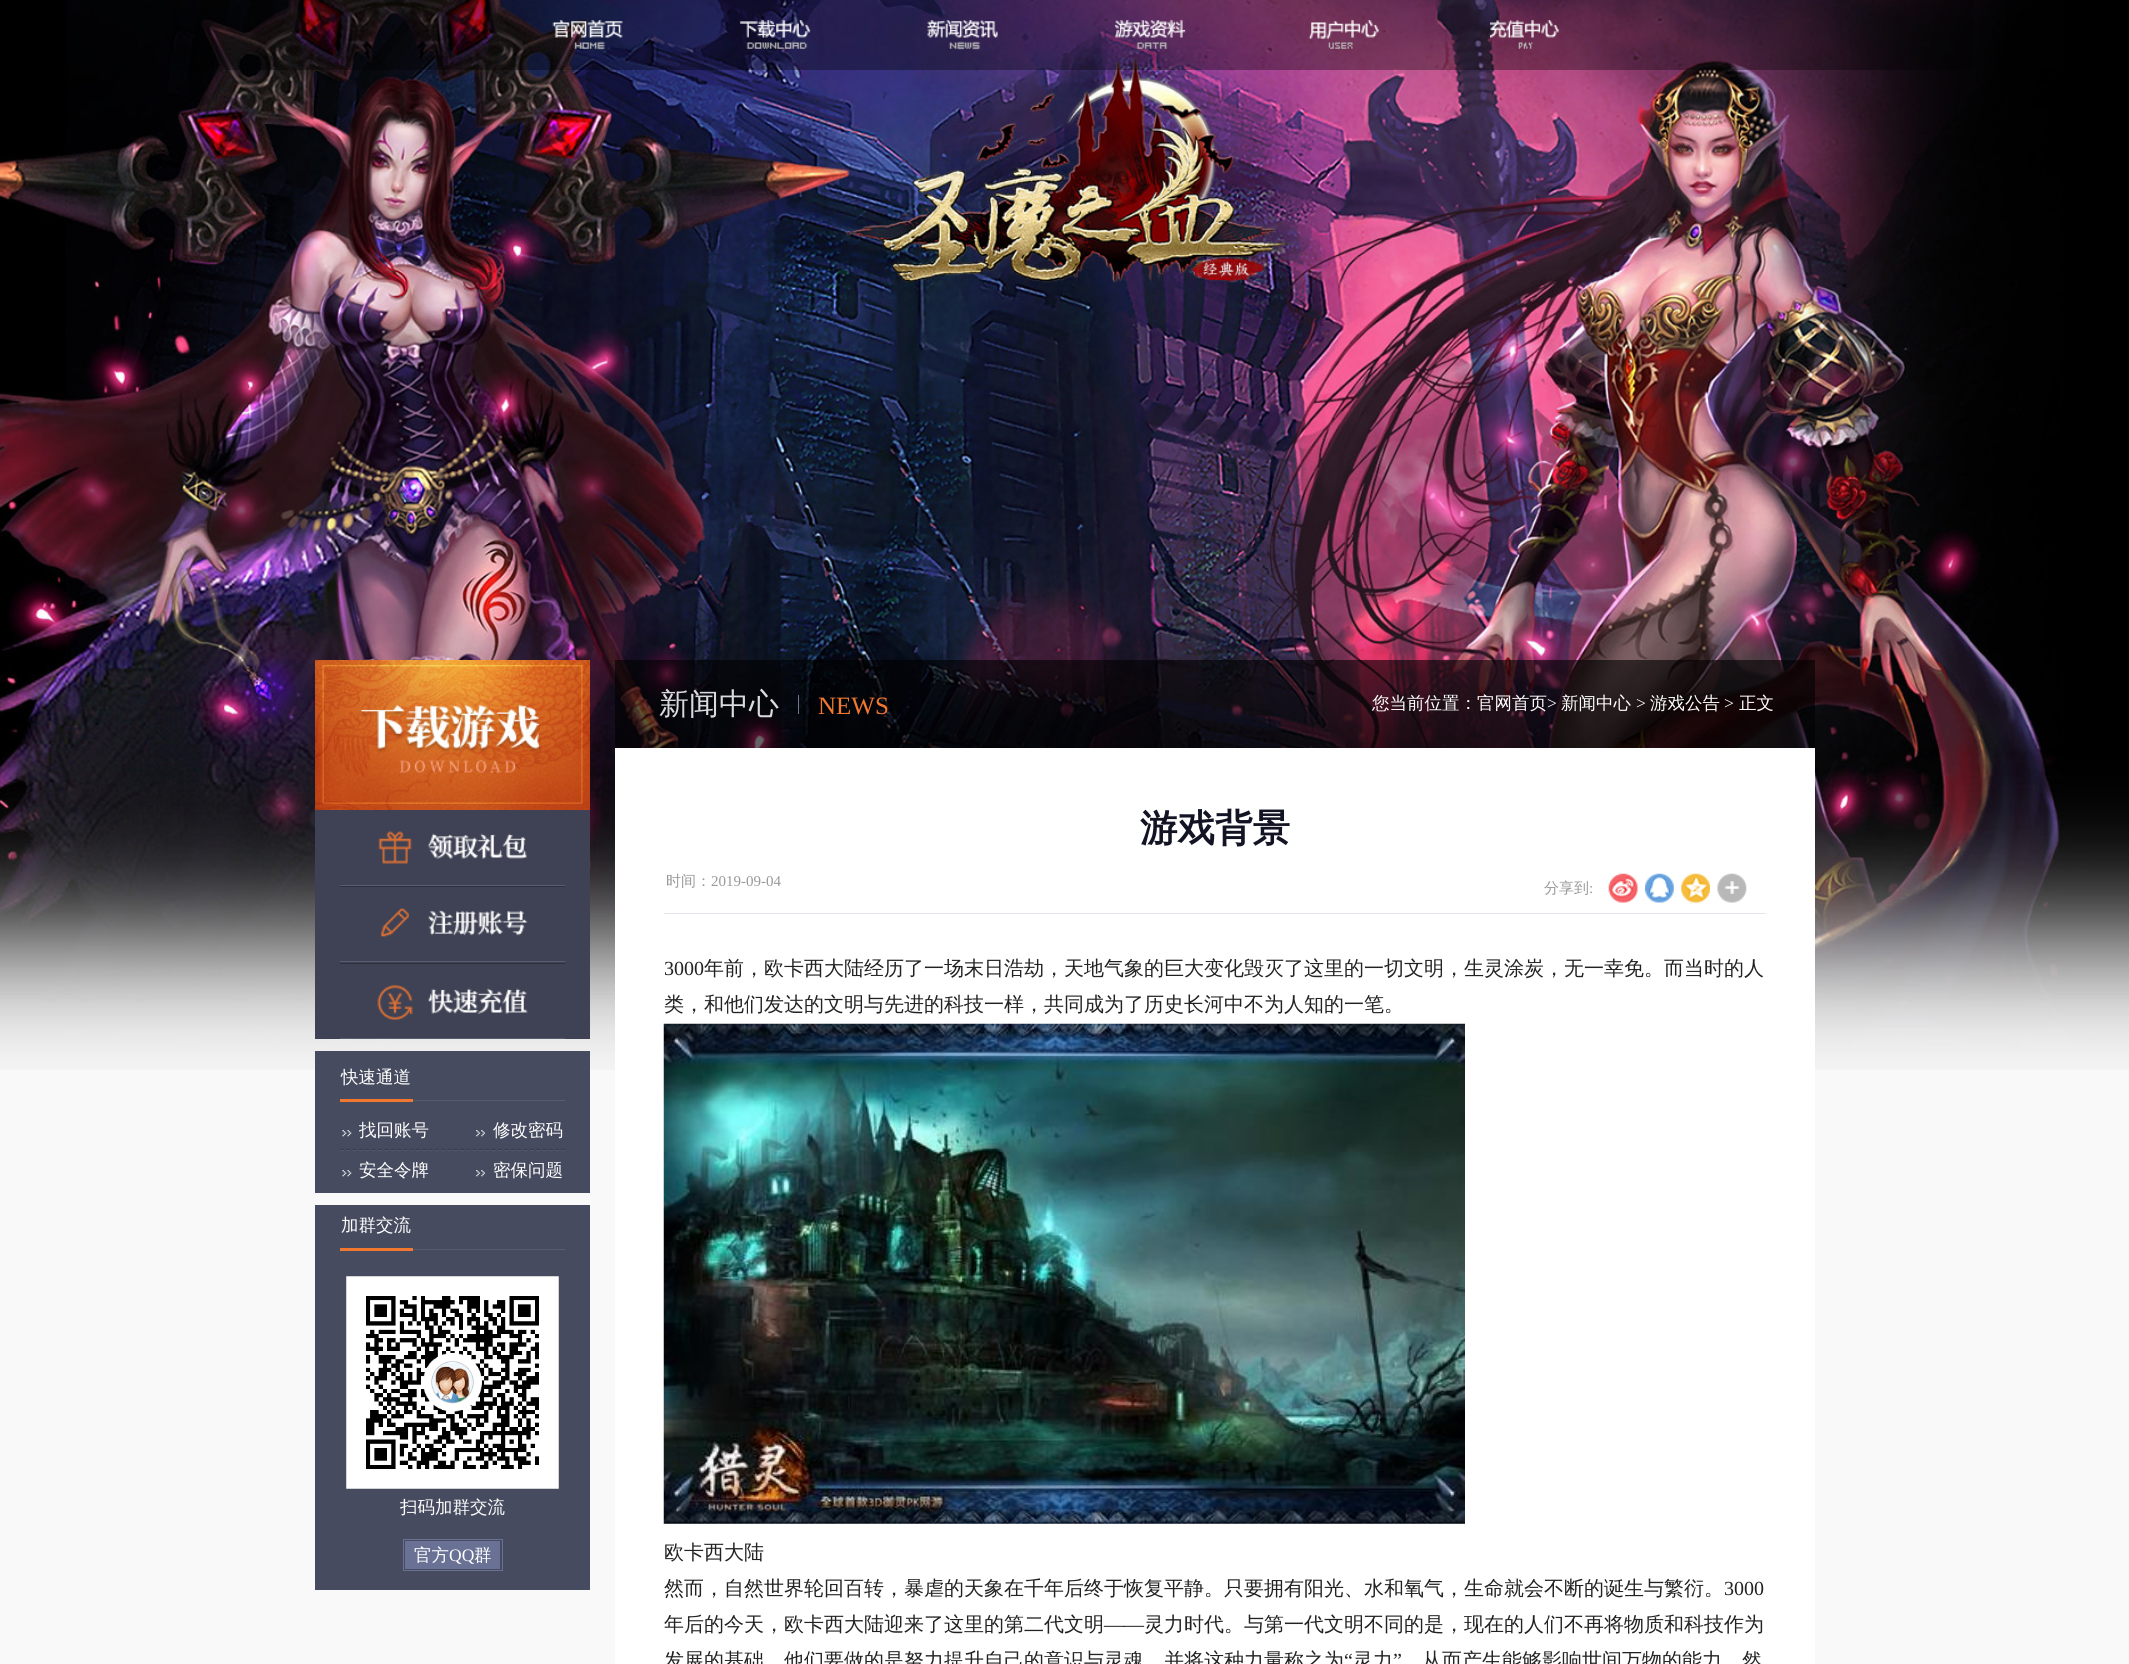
import math
import cairo


def paste(ctx, path, x, y, w, h):
	ctx.save()
	ctx.set_source_surface(cairo.ImageSurface.create_from_png(path), x, y)
	ctx.rectangle(x, y, w, h)
	ctx.fill()
	ctx.restore()

def draw(ctx):
	ctx.set_source_rgb(0.973, 0.973, 0.973)
	ctx.paint()
	paste(ctx, 'media/1.png', 0, 0, 2129, 1070)
	ctx.set_source_rgba(0, 0, 0, 0.35)
	ctx.rectangle(174, 0, 1799, 70)
	ctx.fill()
	paste(ctx, 'media/2.png', 552, 20, 71, 30)
	paste(ctx, 'media/3.png', 740, 20, 71, 29)
	paste(ctx, 'media/4.png', 927, 20, 71, 30)
	paste(ctx, 'media/5.png', 1115, 20, 71, 29)
	paste(ctx, 'media/6.png', 1308, 20, 71, 29)
	paste(ctx, 'media/7.png', 1490, 20, 69, 29)
	paste(ctx, 'media/8.png', 315, 660, 275, 150)
	ctx.set_source_rgb(0.247, 0.259, 0.329)
	ctx.rectangle(315, 810, 275, 229)
	ctx.fill()
	paste(ctx, 'media/9.png', 378, 831, 150, 33)
	ctx.set_source_rgb(0.345, 0.365, 0.455)
	ctx.rectangle(340, 885, 225, 1)
	ctx.fill()
	paste(ctx, 'media/10.png', 381, 908, 147, 29)
	ctx.set_source_rgb(0.18, 0.188, 0.243)
	ctx.rectangle(340, 886, 225, 1)
	ctx.fill()
	ctx.set_source_rgb(0.345, 0.365, 0.455)
	ctx.rectangle(340, 961, 225, 1)
	ctx.fill()
	paste(ctx, 'media/11.png', 377, 984, 151, 36)
	ctx.set_source_rgb(0.18, 0.188, 0.243)
	ctx.rectangle(340, 963, 225, 1)
	ctx.fill()
	ctx.set_source_rgb(0.345, 0.365, 0.455)
	ctx.rectangle(340, 1038, 225, 1)
	ctx.fill()
	ctx.set_source_rgb(0.278, 0.294, 0.373)
	ctx.rectangle(315, 1051, 275, 142)
	ctx.fill()
	ctx.set_source_rgb(0.341, 0.361, 0.451)
	ctx.rectangle(413, 1100, 152, 1)
	ctx.fill()
	ctx.select_font_face('WenQuanYi Zen Hei Medium')
	ctx.set_font_size(17.5)
	ctx.set_source_rgb(1, 1, 1)
	ctx.move_to(341, 1083)
	ctx.show_text('快速通道')
	ctx.set_source_rgb(0.949, 0.471, 0.184)
	ctx.rectangle(340, 1099, 73, 3)
	ctx.fill()
	ctx.new_path()
	ctx.move_to(340, 1149.5)
	ctx.line_to(565, 1149.5)
	ctx.set_source_rgb(0.212, 0.224, 0.286)
	ctx.set_line_width(1.2)
	ctx.set_dash([3.75, 2.58])
	ctx.stroke()
	paste(ctx, 'media/12.png', 342, 1130, 10, 7)
	ctx.set_source_rgb(1, 1, 1)
	ctx.move_to(359, 1136)
	ctx.show_text('找回账号')
	paste(ctx, 'media/13.png', 476, 1130, 9, 7)
	ctx.move_to(493, 1136)
	ctx.show_text('修改密码')
	ctx.new_path()
	ctx.move_to(340, 1150.5)
	ctx.line_to(565, 1150.5)
	ctx.set_source_rgb(0.329, 0.349, 0.431)
	ctx.stroke()
	paste(ctx, 'media/12.png', 342, 1170, 10, 7)
	ctx.set_source_rgb(1, 1, 1)
	ctx.move_to(359, 1176)
	ctx.show_text('安全令牌')
	paste(ctx, 'media/13.png', 476, 1170, 9, 7)
	ctx.move_to(493, 1176)
	ctx.show_text('密保问题')
	ctx.set_source_rgb(0.278, 0.294, 0.373)
	ctx.rectangle(315, 1205, 275, 385)
	ctx.fill()
	ctx.set_source_rgb(0.341, 0.361, 0.451)
	ctx.rectangle(413, 1249, 152, 1)
	ctx.fill()
	ctx.set_source_rgb(1, 1, 1)
	ctx.move_to(341, 1231)
	ctx.show_text('加群交流')
	ctx.set_source_rgb(0.949, 0.471, 0.184)
	ctx.rectangle(340, 1248, 73, 3)
	ctx.fill()
	paste(ctx, 'media/14.png', 346, 1276, 213, 213)
	ctx.set_source_rgb(1, 1, 1)
	ctx.move_to(400, 1513)
	ctx.show_text('扫码加群交流')
	ctx.set_source_rgb(0.412, 0.443, 0.58)
	ctx.rectangle(405, 1541, 95, 28)
	ctx.fill()
	ctx.rectangle(403.5, 1539.5, 99, 31)
	ctx.set_line_width(1)
	ctx.set_dash([])
	ctx.stroke()
	ctx.set_source_rgb(1, 1, 1)
	ctx.move_to(414, 1561)
	ctx.show_text('官方')
	ctx.select_font_face('Liberation Serif')
	ctx.move_to(449, 1561)
	ctx.show_text('QQ')
	ctx.select_font_face('WenQuanYi Zen Hei Medium')
	ctx.move_to(474, 1561)
	ctx.show_text('群')
	ctx.set_source_rgba(0, 0, 0, 0.6)
	ctx.rectangle(615, 660, 1200, 88)
	ctx.fill()
	ctx.set_font_size(30)
	ctx.set_source_rgb(0.855, 0.859, 0.875)
	ctx.move_to(659, 714)
	ctx.show_text('新闻中心')
	ctx.set_source_rgb(0.467, 0.471, 0.522)
	ctx.rectangle(798, 695, 1, 19)
	ctx.fill()
	ctx.select_font_face('Liberation Serif')
	ctx.set_font_size(25)
	ctx.set_source_rgb(0.949, 0.471, 0.184)
	ctx.move_to(818, 714)
	ctx.show_text('NEWS')
	ctx.select_font_face('WenQuanYi Zen Hei Medium')
	ctx.set_font_size(17.5)
	ctx.set_source_rgb(1, 1, 1)
	ctx.move_to(1372, 709)
	ctx.show_text('您当前位置：官网首页')
	ctx.select_font_face('Liberation Serif')
	ctx.move_to(1547, 709)
	ctx.show_text('>')
	ctx.select_font_face('WenQuanYi Zen Hei Medium')
	ctx.move_to(1561, 709)
	ctx.show_text('新闻中心')
	ctx.select_font_face('Liberation Serif')
	ctx.move_to(1636, 709)
	ctx.show_text('>')
	ctx.select_font_face('WenQuanYi Zen Hei Medium')
	ctx.move_to(1650, 709)
	ctx.show_text('游戏公告')
	ctx.select_font_face('Liberation Serif')
	ctx.move_to(1724, 709)
	ctx.show_text('>')
	ctx.select_font_face('WenQuanYi Zen Hei Medium')
	ctx.move_to(1739, 709)
	ctx.show_text('正文')
	ctx.rectangle(615, 748, 1200, 916)
	ctx.fill()
	ctx.set_source_rgb(0.898, 0.898, 0.918)
	ctx.rectangle(664, 913, 1102, 1)
	ctx.fill()
	ctx.select_font_face('WenQuanYi Zen Hei', cairo.FONT_SLANT_NORMAL, cairo.FONT_WEIGHT_BOLD)
	ctx.set_font_size(37.5)
	ctx.set_source_rgb(0.071, 0.082, 0.141)
	ctx.move_to(1140, 841)
	ctx.show_text('游戏背景')
	ctx.select_font_face('WenQuanYi Zen Hei Medium')
	ctx.set_font_size(15)
	ctx.set_source_rgb(0.6, 0.6, 0.6)
	ctx.move_to(666, 886)
	ctx.show_text('时间：')
	ctx.select_font_face('Liberation Serif')
	ctx.move_to(711, 886)
	ctx.show_text('2019-09-04')
	ctx.select_font_face('WenQuanYi Zen Hei Medium')
	ctx.move_to(1544, 893)
	ctx.show_text('分享到')
	ctx.select_font_face('Liberation Serif')
	ctx.move_to(1589, 893)
	ctx.show_text(':')
	paste(ctx, 'media/15.png', 1608, 873, 30, 30)
	paste(ctx, 'media/16.png', 1645, 873, 29, 30)
	paste(ctx, 'media/17.png', 1681, 873, 29, 30)
	paste(ctx, 'media/18.png', 1717, 873, 30, 30)
	ctx.set_font_size(20)
	ctx.set_source_rgb(0.133, 0.133, 0.133)
	ctx.move_to(664, 975)
	ctx.show_text('3000')
	ctx.select_font_face('WenQuanYi Zen Hei Medium')
	ctx.move_to(704, 975)
	ctx.show_text('年前，欧卡西大陆经历了一场末日浩劫，天地气象的巨大变化毁灭了这里的一切文明，生灵涂炭，无一幸免。而当时的人')
	ctx.move_to(664, 1011)
	ctx.show_text('类，和他们发达的文明与先进的科技一样，共同成为了历史长河中不为人知的一笔。')
	paste(ctx, 'media/19.png', 663, 1023, 802, 501)
	ctx.move_to(664, 1559)
	ctx.show_text('欧卡西大陆')
	ctx.move_to(664, 1595)
	ctx.show_text('然而，自然世界轮回百转，暴虐的天象在千年后终于恢复平静。只要拥有阳光、水和氧气，生命就会不断的诞生与繁衍。')
	ctx.select_font_face('Liberation Serif')
	ctx.move_to(1724, 1595)
	ctx.show_text('3000')
	ctx.select_font_face('WenQuanYi Zen Hei Medium')
	ctx.move_to(664, 1631)
	ctx.show_text('年后的今天，欧卡西大陆迎来了这里的第二代文明')
	ctx.select_font_face('Liberation Serif')
	ctx.move_to(1104, 1631)
	ctx.show_text('——')
	ctx.select_font_face('WenQuanYi Zen Hei Medium')
	ctx.move_to(1144, 1631)
	ctx.show_text('灵力时代。与第一代文明不同的是，现在的人们不再将物质和科技作为')
	ctx.move_to(664, 1667)
	ctx.show_text('发展的基础，他们要做的是努力提升自己的意识与灵魂，并将这种力量称之为')
	ctx.select_font_face('Liberation Serif')
	ctx.move_to(1344, 1667)
	ctx.show_text('“')
	ctx.select_font_face('WenQuanYi Zen Hei Medium')
	ctx.move_to(1353, 1667)
	ctx.show_text('灵力')
	ctx.select_font_face('Liberation Serif')
	ctx.move_to(1393, 1667)
	ctx.show_text('”')
	ctx.select_font_face('WenQuanYi Zen Hei Medium')
	ctx.move_to(1422, 1667)
	ctx.show_text('从而产生能够影响世间万物的能力。然')


surface = cairo.ImageSurface(cairo.FORMAT_RGB24, 2129, 1664)
ctx = cairo.Context(surface)
options = cairo.FontOptions()
options.set_hint_metrics(cairo.HINT_METRICS_OFF)
options.set_hint_style(cairo.HINT_STYLE_NONE)
ctx.set_font_options(options)
ctx.set_miter_limit(4)
draw(ctx)
surface.write_to_png('image.png')
